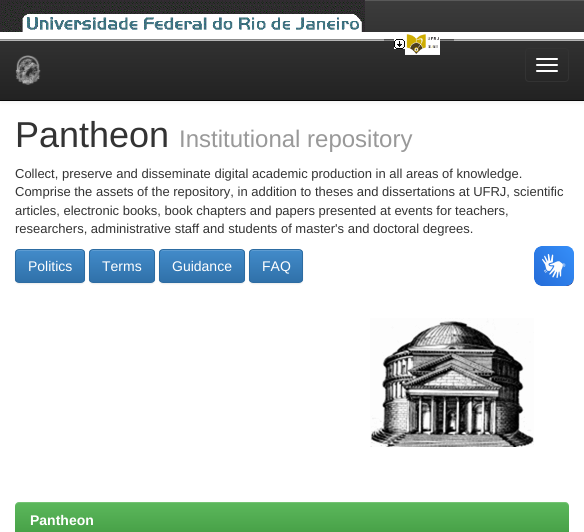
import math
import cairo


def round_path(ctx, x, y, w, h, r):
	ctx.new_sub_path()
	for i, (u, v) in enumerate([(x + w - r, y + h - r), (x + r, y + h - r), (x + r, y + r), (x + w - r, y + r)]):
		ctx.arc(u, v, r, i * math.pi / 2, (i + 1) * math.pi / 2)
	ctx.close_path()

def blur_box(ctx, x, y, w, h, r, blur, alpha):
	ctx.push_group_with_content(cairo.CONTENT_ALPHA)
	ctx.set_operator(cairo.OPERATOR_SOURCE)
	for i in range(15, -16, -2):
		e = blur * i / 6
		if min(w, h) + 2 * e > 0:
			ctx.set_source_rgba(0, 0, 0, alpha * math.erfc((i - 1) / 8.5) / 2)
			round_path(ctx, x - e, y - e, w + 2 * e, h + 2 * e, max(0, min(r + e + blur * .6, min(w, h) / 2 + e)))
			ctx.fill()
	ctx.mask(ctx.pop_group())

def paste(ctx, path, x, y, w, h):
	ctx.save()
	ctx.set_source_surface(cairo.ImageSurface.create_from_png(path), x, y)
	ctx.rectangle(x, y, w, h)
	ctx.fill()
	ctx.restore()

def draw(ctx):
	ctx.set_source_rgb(1, 1, 1)
	ctx.paint()
	ctx.set_source_rgb(0, 0, 0)
	blur_box(ctx, 0, 1, 584, 101, 0, 2.5, 0.07)
	gradient = cairo.LinearGradient(292, 0, 292, 100)
	gradient.add_color_stop_rgba(0, 0.235, 0.235, 0.235, 1)
	gradient.add_color_stop_rgba(1, 0.133, 0.133, 0.133, 1)
	ctx.set_source(gradient)
	ctx.rectangle(0, 1, 584, 99)
	ctx.fill()
	ctx.set_source_rgb(0.349, 0.349, 0.349)
	ctx.rectangle(365, 0, 219, 1)
	ctx.fill()
	ctx.set_source_rgb(0.031, 0.031, 0.031)
	ctx.rectangle(0, 100, 584, 1)
	ctx.fill()
	paste(ctx, 'media/1.png', 0, 0, 365, 32)
	ctx.set_source_rgb(1, 1, 1)
	ctx.rectangle(0, 32, 584, 9)
	ctx.fill()
	paste(ctx, 'media/2.png', 0, 39, 584, 2)
	paste(ctx, 'media/3.png', 384, 39, 70, 2)
	paste(ctx, 'media/4.png', 394, 39, 11, 10)
	paste(ctx, 'media/5.png', 405, 34, 35, 21)
	paste(ctx, 'media/6.png', 15, 55, 26, 30)
	round_path(ctx, 525.5, 48.5, 43, 33, 3.5)
	ctx.set_source_rgb(0.2, 0.2, 0.2)
	ctx.set_line_width(1)
	ctx.stroke()
	ctx.set_source_rgb(1, 1, 1)
	round_path(ctx, 536, 58, 22, 2, 1)
	ctx.fill()
	round_path(ctx, 536, 64, 22, 2, 1)
	ctx.fill()
	round_path(ctx, 536, 70, 22, 2, 1)
	ctx.fill()
	ctx.select_font_face('Liberation Sans')
	ctx.set_font_size(36)
	ctx.set_source_rgb(0.2, 0.2, 0.2)
	ctx.move_to(15, 147)
	ctx.show_text('Pantheon')
	ctx.set_font_size(24)
	ctx.set_source_rgb(0.6, 0.6, 0.6)
	ctx.move_to(179, 147)
	ctx.show_text('Institutional repository')
	ctx.set_font_size(13)
	ctx.set_source_rgb(0.2, 0.2, 0.2)
	for x, y, s in [
		(15, 178, 'Collect, preserve and disseminate digital academic production in all areas of knowledge.'),
		(15, 196, 'Comprise the assets of the repository, in addition to theses and dissertations at UFRJ, scientific'),
		(15, 215, 'articles, electronic books, book chapters and papers presented at events for teachers,'),
		(15, 233, 'researchers, administrative staff and students of master\'s and doctoral degrees.'),
	]:
		ctx.move_to(x, y)
		ctx.show_text(s)
	ctx.set_source_rgb(0, 0, 0)
	blur_box(ctx, 15, 250, 70, 34, 4, 0.5, 0.07)
	ctx.save()
	round_path(ctx, 15, 249, 70, 34, 4)
	ctx.clip()
	gradient = cairo.LinearGradient(50, 250, 50, 282)
	gradient.add_color_stop_rgba(0, 0.259, 0.545, 0.792, 1)
	gradient.add_color_stop_rgba(1, 0.188, 0.443, 0.663, 1)
	ctx.set_source(gradient)
	ctx.rectangle(15, 250, 70, 32)
	ctx.fill()
	ctx.restore()
	ctx.set_source_rgb(0.369, 0.612, 0.82)
	ctx.new_path()
	ctx.move_to(19, 251)
	ctx.line_to(81, 251)
	ctx.curve_to(83, 251, 84, 252, 84, 254)
	ctx.curve_to(84, 247, 75, 250, 71, 250)
	ctx.line_to(29, 250)
	ctx.curve_to(25, 250, 16, 247, 16, 254)
	ctx.curve_to(16, 252, 17, 251, 19, 251)
	ctx.close_path()
	ctx.fill()
	round_path(ctx, 15.5, 249.5, 69, 33, 3.5)
	ctx.set_source_rgb(0.176, 0.424, 0.635)
	ctx.stroke()
	ctx.set_font_size(14)
	ctx.set_source_rgb(1, 1, 1)
	ctx.move_to(28, 271)
	ctx.show_text('Politics')
	ctx.set_source_rgb(0, 0, 0)
	blur_box(ctx, 89, 250, 66, 34, 4, 0.5, 0.07)
	ctx.save()
	round_path(ctx, 89, 249, 66, 34, 4)
	ctx.clip()
	gradient = cairo.LinearGradient(122, 250, 122, 282)
	gradient.add_color_stop_rgba(0, 0.259, 0.545, 0.792, 1)
	gradient.add_color_stop_rgba(1, 0.188, 0.443, 0.663, 1)
	ctx.set_source(gradient)
	ctx.rectangle(89, 250, 66, 32)
	ctx.fill()
	ctx.restore()
	ctx.set_source_rgb(0.369, 0.612, 0.82)
	ctx.new_path()
	ctx.move_to(93, 251)
	ctx.line_to(151, 251)
	ctx.curve_to(153, 251, 154, 252, 154, 254)
	ctx.curve_to(154, 248, 146, 250, 141, 250)
	ctx.line_to(103, 250)
	ctx.curve_to(98, 250, 90, 248, 90, 254)
	ctx.curve_to(90, 252, 91, 251, 93, 251)
	ctx.close_path()
	ctx.fill()
	round_path(ctx, 89.5, 249.5, 65, 33, 3.5)
	ctx.set_source_rgb(0.176, 0.424, 0.635)
	ctx.stroke()
	ctx.set_source_rgb(1, 1, 1)
	ctx.move_to(102, 271)
	ctx.show_text('Terms')
	ctx.set_source_rgb(0, 0, 0)
	blur_box(ctx, 159, 250, 86, 34, 4, 0.5, 0.07)
	ctx.save()
	round_path(ctx, 159, 249, 86, 34, 4)
	ctx.clip()
	gradient = cairo.LinearGradient(202, 250, 202, 282)
	gradient.add_color_stop_rgba(0, 0.259, 0.545, 0.792, 1)
	gradient.add_color_stop_rgba(1, 0.188, 0.443, 0.663, 1)
	ctx.set_source(gradient)
	ctx.rectangle(159, 250, 86, 32)
	ctx.fill()
	ctx.restore()
	ctx.set_source_rgb(0.369, 0.612, 0.82)
	ctx.new_path()
	ctx.move_to(163, 251)
	ctx.line_to(241, 251)
	ctx.curve_to(243, 251, 244, 252, 244, 254)
	ctx.curve_to(244, 247, 232, 250, 228, 250)
	ctx.line_to(176, 250)
	ctx.curve_to(172, 250, 160, 247, 160, 254)
	ctx.curve_to(160, 252, 161, 251, 163, 251)
	ctx.close_path()
	ctx.fill()
	round_path(ctx, 159.5, 249.5, 85, 33, 3.5)
	ctx.set_source_rgb(0.176, 0.424, 0.635)
	ctx.stroke()
	ctx.set_source_rgb(1, 1, 1)
	ctx.move_to(172, 271)
	ctx.show_text('Guidance')
	ctx.set_source_rgb(0, 0, 0)
	blur_box(ctx, 249, 250, 54, 34, 4, 0.5, 0.07)
	ctx.save()
	round_path(ctx, 249, 249, 54, 34, 4)
	ctx.clip()
	gradient = cairo.LinearGradient(276, 250, 276, 282)
	gradient.add_color_stop_rgba(0, 0.259, 0.545, 0.792, 1)
	gradient.add_color_stop_rgba(1, 0.188, 0.443, 0.663, 1)
	ctx.set_source(gradient)
	ctx.rectangle(249, 250, 54, 32)
	ctx.fill()
	ctx.restore()
	ctx.set_source_rgb(0.369, 0.612, 0.82)
	ctx.new_path()
	ctx.move_to(253, 251)
	ctx.line_to(299, 251)
	ctx.curve_to(301, 251, 302, 252, 302, 254)
	ctx.curve_to(302, 248, 296, 250, 291, 250)
	ctx.line_to(261, 250)
	ctx.curve_to(256, 250, 250, 248, 250, 254)
	ctx.curve_to(250, 252, 251, 251, 253, 251)
	ctx.close_path()
	ctx.fill()
	round_path(ctx, 249.5, 249.5, 53, 33, 3.5)
	ctx.set_source_rgb(0.176, 0.424, 0.635)
	ctx.stroke()
	ctx.set_source_rgb(1, 1, 1)
	ctx.move_to(262, 271)
	ctx.show_text('FAQ')
	paste(ctx, 'media/7.png', 370, 318, 164, 129)
	gradient = cairo.LinearGradient(292, 502, 292, 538)
	gradient.add_color_stop_rgba(0, 0.361, 0.722, 0.361, 1)
	gradient.add_color_stop_rgba(1, 0.267, 0.616, 0.267, 1)
	ctx.set_source(gradient)
	round_path(ctx, 15, 502, 554, 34, 4)
	ctx.fill()
	ctx.set_source_rgba(1, 1, 1, 0.15)
	ctx.new_path()
	ctx.move_to(19, 503)
	ctx.line_to(565, 503)
	ctx.curve_to(567, 503, 569, 505, 569, 507)
	ctx.line_to(569, 506)
	ctx.curve_to(569, 504, 567, 502, 565, 502)
	ctx.line_to(19, 502)
	ctx.curve_to(17, 502, 15, 504, 15, 506)
	ctx.line_to(15, 507)
	ctx.curve_to(15, 505, 17, 503, 19, 503)
	ctx.close_path()
	ctx.fill()
	ctx.select_font_face('Liberation Sans', cairo.FONT_SLANT_NORMAL, cairo.FONT_WEIGHT_BOLD)
	ctx.set_source_rgb(1, 1, 1)
	ctx.move_to(30, 525)
	ctx.show_text('Pantheon')
	paste(ctx, 'media/8.png', 534, 246, 40, 40)
	paste(ctx, 'media/9.png', 534, 246, 40, 40)


surface = cairo.ImageSurface(cairo.FORMAT_RGB24, 584, 532)
ctx = cairo.Context(surface)
options = cairo.FontOptions()
options.set_hint_metrics(cairo.HINT_METRICS_OFF)
options.set_hint_style(cairo.HINT_STYLE_NONE)
ctx.set_font_options(options)
ctx.set_miter_limit(4)
draw(ctx)
surface.write_to_png('image.png')
